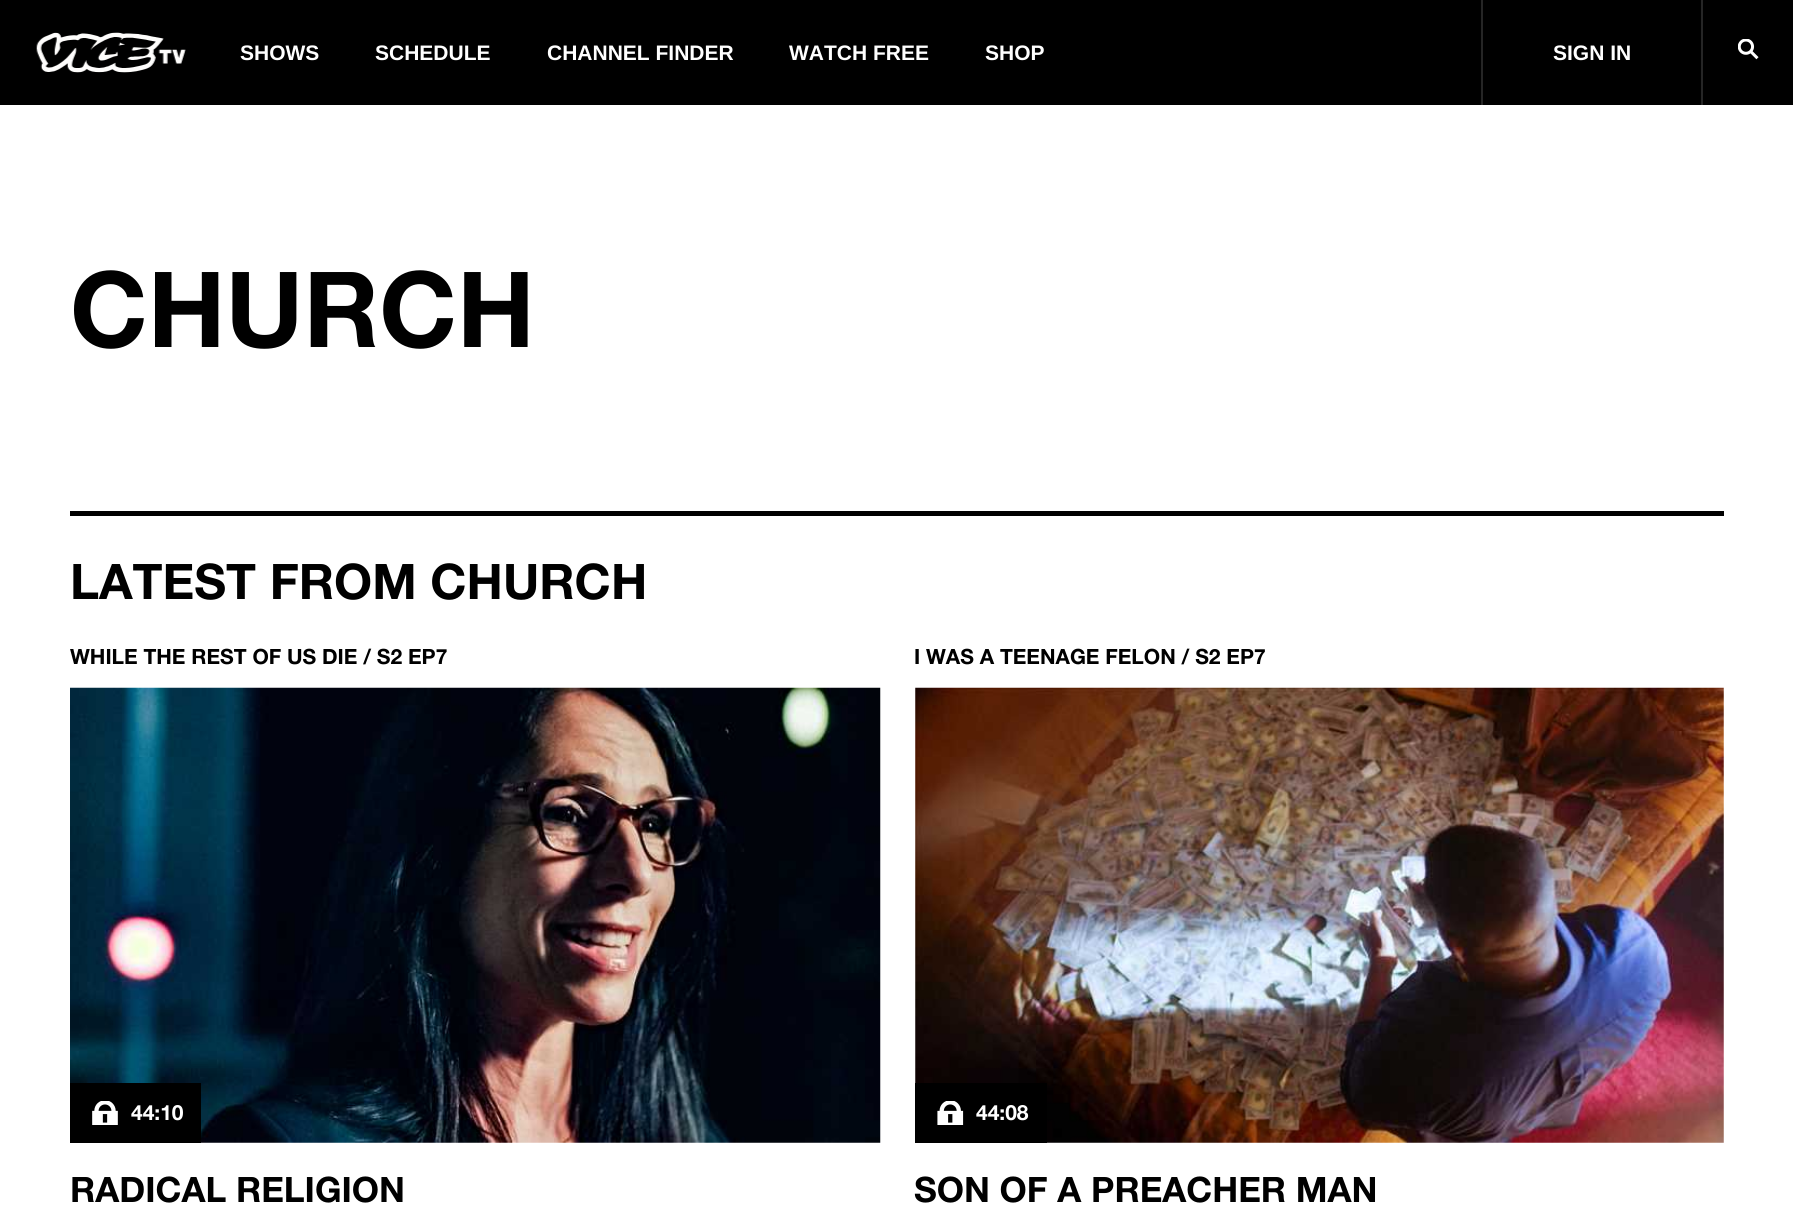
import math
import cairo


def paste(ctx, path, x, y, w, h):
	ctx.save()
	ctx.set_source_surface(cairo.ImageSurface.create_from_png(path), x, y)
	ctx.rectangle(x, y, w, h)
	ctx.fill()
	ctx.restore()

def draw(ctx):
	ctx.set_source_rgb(1, 1, 1)
	ctx.paint()
	ctx.set_source_rgb(0, 0, 0)
	ctx.rectangle(0, 0, 1793, 105)
	ctx.fill()
	paste(ctx, 'media/1.png', 36, 32, 150, 41)
	ctx.select_font_face('Liberation Sans', cairo.FONT_SLANT_NORMAL, cairo.FONT_WEIGHT_BOLD)
	ctx.set_font_size(21)
	ctx.set_source_rgb(1, 1, 1)
	for x, y, s in [
		(240, 60, 'SHOWS'),
		(375, 60, 'SCHEDULE'),
		(547, 60, 'CHANNEL FINDER'),
		(789, 60, 'WATCH FREE'),
		(985, 60, 'SHOP'),
	]:
		ctx.move_to(x, y)
		ctx.show_text(s)
	ctx.set_source_rgb(0.145, 0.145, 0.145)
	ctx.rectangle(1701, 0, 2, 105)
	ctx.fill()
	ctx.rectangle(1481, 0, 2, 105)
	ctx.fill()
	ctx.set_source_rgb(1, 1, 1)
	ctx.move_to(1553, 60)
	ctx.show_text('SIGN IN')
	paste(ctx, 'media/2.png', 1738, 39, 21, 21)
	ctx.select_font_face('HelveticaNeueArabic', cairo.FONT_SLANT_NORMAL, cairo.FONT_WEIGHT_BOLD)
	ctx.set_font_size(105)
	ctx.set_source_rgb(0, 0, 0)
	ctx.move_to(70, 347)
	ctx.show_text('CHURCH')
	ctx.rectangle(70, 511, 1654, 5)
	ctx.fill()
	ctx.set_font_size(49)
	ctx.move_to(70, 599)
	ctx.show_text('LATEST FROM CHURCH')
	ctx.set_font_size(21)
	ctx.move_to(70, 664)
	ctx.show_text('WHILE THE REST OF US DIE / S2 EP7')
	paste(ctx, 'media/3.png', 70, 687, 811, 456)
	ctx.rectangle(70, 1083, 131, 60)
	ctx.fill()
	paste(ctx, 'media/4.png', 92, 1101, 26, 24)
	ctx.set_source_rgb(1, 1, 1)
	ctx.move_to(131, 1120)
	ctx.show_text('44:10')
	ctx.set_font_size(35)
	ctx.set_source_rgb(0, 0, 0)
	ctx.move_to(70, 1202)
	ctx.show_text('RADICAL RELIGION')
	ctx.set_font_size(21)
	ctx.move_to(914, 664)
	ctx.show_text('I WAS A TEENAGE FELON / S2 EP7')
	paste(ctx, 'media/5.png', 915, 687, 809, 456)
	ctx.rectangle(915, 1083, 132, 60)
	ctx.fill()
	paste(ctx, 'media/6.png', 937, 1101, 27, 24)
	ctx.set_source_rgb(1, 1, 1)
	ctx.move_to(976, 1120)
	ctx.show_text('44:08')
	ctx.set_font_size(35)
	ctx.set_source_rgb(0, 0, 0)
	ctx.move_to(914, 1202)
	ctx.show_text('SON OF A PREACHER MAN')


surface = cairo.ImageSurface(cairo.FORMAT_RGB24, 1793, 1210)
ctx = cairo.Context(surface)
options = cairo.FontOptions()
options.set_hint_metrics(cairo.HINT_METRICS_OFF)
options.set_hint_style(cairo.HINT_STYLE_NONE)
ctx.set_font_options(options)
ctx.set_miter_limit(4)
draw(ctx)
surface.write_to_png('image.png')
